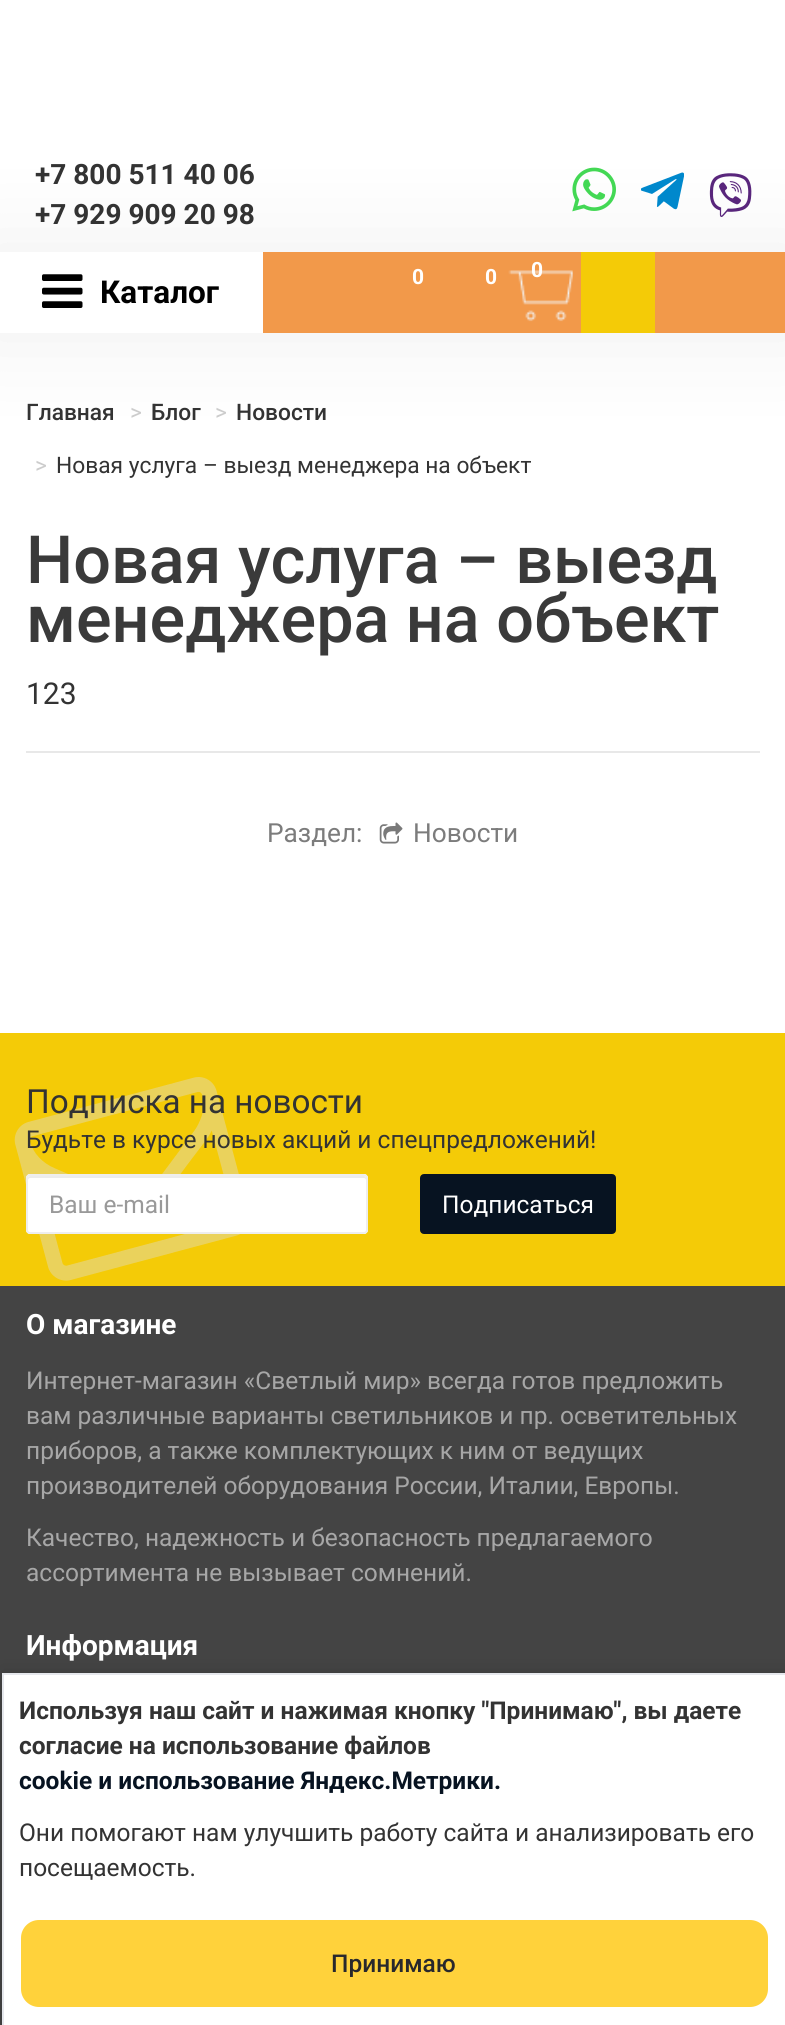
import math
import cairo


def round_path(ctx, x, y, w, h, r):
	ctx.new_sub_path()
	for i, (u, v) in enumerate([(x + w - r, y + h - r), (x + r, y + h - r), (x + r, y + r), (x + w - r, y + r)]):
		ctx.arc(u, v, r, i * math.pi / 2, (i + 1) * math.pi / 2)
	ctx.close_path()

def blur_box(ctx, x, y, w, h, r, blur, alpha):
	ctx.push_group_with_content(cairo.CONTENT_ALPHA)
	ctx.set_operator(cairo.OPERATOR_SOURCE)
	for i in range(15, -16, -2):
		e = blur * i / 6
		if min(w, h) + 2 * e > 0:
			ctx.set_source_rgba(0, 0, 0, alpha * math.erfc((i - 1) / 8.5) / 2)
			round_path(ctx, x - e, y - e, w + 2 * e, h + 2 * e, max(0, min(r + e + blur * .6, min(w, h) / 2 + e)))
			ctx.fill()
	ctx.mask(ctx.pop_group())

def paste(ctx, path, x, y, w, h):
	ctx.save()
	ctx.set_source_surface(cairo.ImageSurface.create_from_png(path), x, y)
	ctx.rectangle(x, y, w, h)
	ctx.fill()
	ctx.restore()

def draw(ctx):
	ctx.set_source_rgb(1, 1, 1)
	ctx.paint()
	ctx.set_source_rgb(0, 0, 0)
	blur_box(ctx, -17, 235, 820, 115, 0, 44, 0.05)
	ctx.select_font_face('Roboto', cairo.FONT_SLANT_NORMAL, cairo.FONT_WEIGHT_BOLD)
	ctx.set_font_size(28)
	ctx.set_source_rgb(0.2, 0.2, 0.2)
	ctx.move_to(35, 184)
	ctx.show_text('+7 800 511 40 06')
	ctx.move_to(35, 224)
	ctx.show_text('+7 929 909 20 98')
	paste(ctx, 'media/1.png', 572, 167, 44, 45)
	paste(ctx, 'media/2.png', 641, 172, 43, 38)
	paste(ctx, 'media/3.png', 709, 173, 43, 44)
	ctx.set_source_rgb(0.949, 0.6, 0.29)
	ctx.rectangle(263, 252, 522, 81)
	ctx.fill()
	ctx.set_font_size(21)
	ctx.set_source_rgb(1, 1, 1)
	ctx.move_to(412, 284)
	ctx.show_text('0')
	ctx.move_to(485, 284)
	ctx.show_text('0')
	paste(ctx, 'media/4.png', 508, 270, 65, 52)
	ctx.move_to(531, 277)
	ctx.show_text('0')
	ctx.set_source_rgb(0.957, 0.796, 0.031)
	ctx.rectangle(581, 252, 74, 81)
	ctx.fill()
	ctx.set_source_rgb(1, 1, 1)
	ctx.rectangle(0, 252, 263, 81)
	ctx.fill()
	paste(ctx, 'media/5.png', 42, 274, 41, 34)
	ctx.set_font_size(31.5)
	ctx.set_source_rgb(0, 0, 0)
	ctx.move_to(100, 303)
	ctx.show_text('Каталог')
	ctx.select_font_face('Roboto Medium')
	ctx.set_font_size(22.75)
	ctx.set_source_rgb(0.2, 0.2, 0.2)
	ctx.move_to(26, 420)
	ctx.show_text('Главная')
	ctx.select_font_face('Roboto')
	ctx.set_source_rgb(0.8, 0.8, 0.8)
	ctx.move_to(130, 420)
	ctx.show_text('>')
	ctx.select_font_face('Roboto Medium')
	ctx.set_source_rgb(0.2, 0.2, 0.2)
	ctx.move_to(151, 420)
	ctx.show_text('Блог')
	ctx.select_font_face('Roboto')
	ctx.set_source_rgb(0.8, 0.8, 0.8)
	ctx.move_to(215, 420)
	ctx.show_text('>')
	ctx.select_font_face('Roboto Medium')
	ctx.set_source_rgb(0.2, 0.2, 0.2)
	ctx.move_to(236, 420)
	ctx.show_text('Новости')
	ctx.select_font_face('Roboto')
	ctx.set_source_rgb(0.8, 0.8, 0.8)
	ctx.move_to(35, 473)
	ctx.show_text('>')
	ctx.set_source_rgb(0.2, 0.2, 0.2)
	ctx.move_to(56, 473)
	ctx.show_text('Новая услуга – выезд менеджера на объект')
	ctx.select_font_face('Roboto Medium')
	ctx.set_font_size(66.5)
	ctx.set_source_rgb(0.227, 0.227, 0.227)
	ctx.move_to(26, 583)
	ctx.show_text('Новая услуга – выезд')
	ctx.move_to(26, 642)
	ctx.show_text('менеджера на объект')
	ctx.select_font_face('Roboto')
	ctx.set_font_size(30)
	ctx.set_source_rgb(0.2, 0.2, 0.2)
	ctx.move_to(26, 704)
	ctx.show_text('123')
	ctx.set_source_rgb(0.91, 0.91, 0.91)
	ctx.rectangle(26, 751, 734, 2)
	ctx.fill()
	ctx.set_font_size(26.25)
	ctx.set_source_rgb(0.486, 0.486, 0.486)
	ctx.move_to(267, 842)
	ctx.show_text('Раздел:')
	paste(ctx, 'media/6.png', 379, 822, 24, 22)
	ctx.move_to(413, 842)
	ctx.show_text('Новости')
	ctx.set_source_rgb(0.267, 0.267, 0.267)
	ctx.rectangle(0, 1286, 785, 739)
	ctx.fill()
	ctx.set_source_rgb(0.957, 0.796, 0.031)
	ctx.rectangle(0, 1033, 785, 253)
	ctx.fill()
	paste(ctx, 'media/7.png', 14, 1077, 226, 204)
	ctx.set_font_size(33.25)
	ctx.set_source_rgb(0.2, 0.2, 0.2)
	ctx.move_to(26, 1113)
	ctx.show_text('Подписка на новости')
	ctx.set_font_size(24.5)
	ctx.move_to(26, 1148)
	ctx.show_text('Будьте в курсе новых акций и спецпредложений!')
	ctx.set_source_rgb(1, 1, 1)
	round_path(ctx, 26, 1174, 342, 60, 4)
	ctx.fill()
	ctx.set_source_rgb(0.925, 0.925, 0.925)
	ctx.new_path()
	ctx.move_to(30, 1178)
	ctx.line_to(364, 1178)
	ctx.curve_to(365, 1178, 366, 1179, 366, 1180)
	ctx.line_to(366, 1178)
	ctx.curve_to(366, 1177, 365, 1176, 364, 1176)
	ctx.line_to(30, 1176)
	ctx.curve_to(29, 1176, 28, 1177, 28, 1178)
	ctx.line_to(28, 1180)
	ctx.curve_to(28, 1179, 29, 1178, 30, 1178)
	ctx.close_path()
	ctx.fill()
	round_path(ctx, 27, 1175, 340, 58, 3)
	ctx.set_source_rgb(0.933, 0.933, 0.933)
	ctx.stroke()
	ctx.set_source_rgb(0.6, 0.6, 0.6)
	ctx.move_to(49, 1213)
	ctx.show_text('Ваш e-mail')
	ctx.set_source_rgb(0.031, 0.078, 0.129)
	round_path(ctx, 421, 1175, 194, 58, 3)
	ctx.fill_preserve()
	ctx.stroke()
	ctx.set_source_rgb(1, 1, 1)
	ctx.move_to(442, 1213)
	ctx.show_text('Подписаться')
	ctx.select_font_face('Roboto', cairo.FONT_SLANT_NORMAL, cairo.FONT_WEIGHT_BOLD)
	ctx.set_font_size(28)
	ctx.move_to(26, 1334)
	ctx.show_text('О магазине')
	ctx.select_font_face('Roboto')
	ctx.set_font_size(24.5)
	ctx.set_source_rgb(0.655, 0.655, 0.655)
	for x, y, s in [
		(26, 1389, 'Интернет-магазин «Светлый мир» всегда готов предложить'),
		(26, 1424, 'вам различные варианты светильников и пр. осветительных'),
		(26, 1459, 'приборов, а также комплектующих к ним от ведущих'),
		(26, 1494, 'производителей оборудования России, Италии, Европы.'),
		(26, 1546, 'Качество, надежность и безопасность предлагаемого'),
		(26, 1581, 'ассортимента не вызывает сомнений.'),
	]:
		ctx.move_to(x, y)
		ctx.show_text(s)
	ctx.select_font_face('Roboto', cairo.FONT_SLANT_NORMAL, cairo.FONT_WEIGHT_BOLD)
	ctx.set_font_size(28)
	ctx.set_source_rgb(1, 1, 1)
	ctx.move_to(26, 1655)
	ctx.show_text('Информация')
	ctx.set_source_rgb(0, 0, 0)
	blur_box(ctx, 2, 1673, 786, 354, 0, 9, 0.15)
	ctx.set_source_rgb(1, 1, 1)
	ctx.rectangle(3, 1674, 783, 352)
	ctx.fill_preserve()
	ctx.set_source_rgb(0.898, 0.906, 0.922)
	ctx.stroke()
	ctx.set_font_size(24.5)
	ctx.set_source_rgb(0.2, 0.2, 0.2)
	ctx.move_to(19, 1719)
	ctx.show_text('Используя наш сайт и нажимая кнопку "Принимаю", вы даете')
	ctx.move_to(19, 1754)
	ctx.show_text('согласие на использование файлов')
	ctx.set_source_rgb(0.031, 0.078, 0.129)
	ctx.move_to(19, 1789)
	ctx.show_text('cookie и использование Яндекс.Метрики.')
	ctx.select_font_face('Roboto')
	ctx.set_source_rgb(0.2, 0.2, 0.2)
	ctx.move_to(19, 1841)
	ctx.show_text('Они помогают нам улучшить работу сайта и анализировать его')
	ctx.move_to(19, 1876)
	ctx.show_text('посещаемость.')
	ctx.set_source_rgb(1, 0.824, 0.231)
	round_path(ctx, 21, 1920, 747, 87, 18)
	ctx.fill()
	ctx.select_font_face('Roboto Medium')
	ctx.set_source_rgb(0.157, 0.157, 0.173)
	ctx.move_to(331, 1972)
	ctx.show_text('Принимаю')


surface = cairo.ImageSurface(cairo.FORMAT_RGB24, 785, 2025)
ctx = cairo.Context(surface)
options = cairo.FontOptions()
options.set_hint_metrics(cairo.HINT_METRICS_OFF)
options.set_hint_style(cairo.HINT_STYLE_NONE)
ctx.set_font_options(options)
ctx.set_miter_limit(4)
draw(ctx)
surface.write_to_png('image.png')
